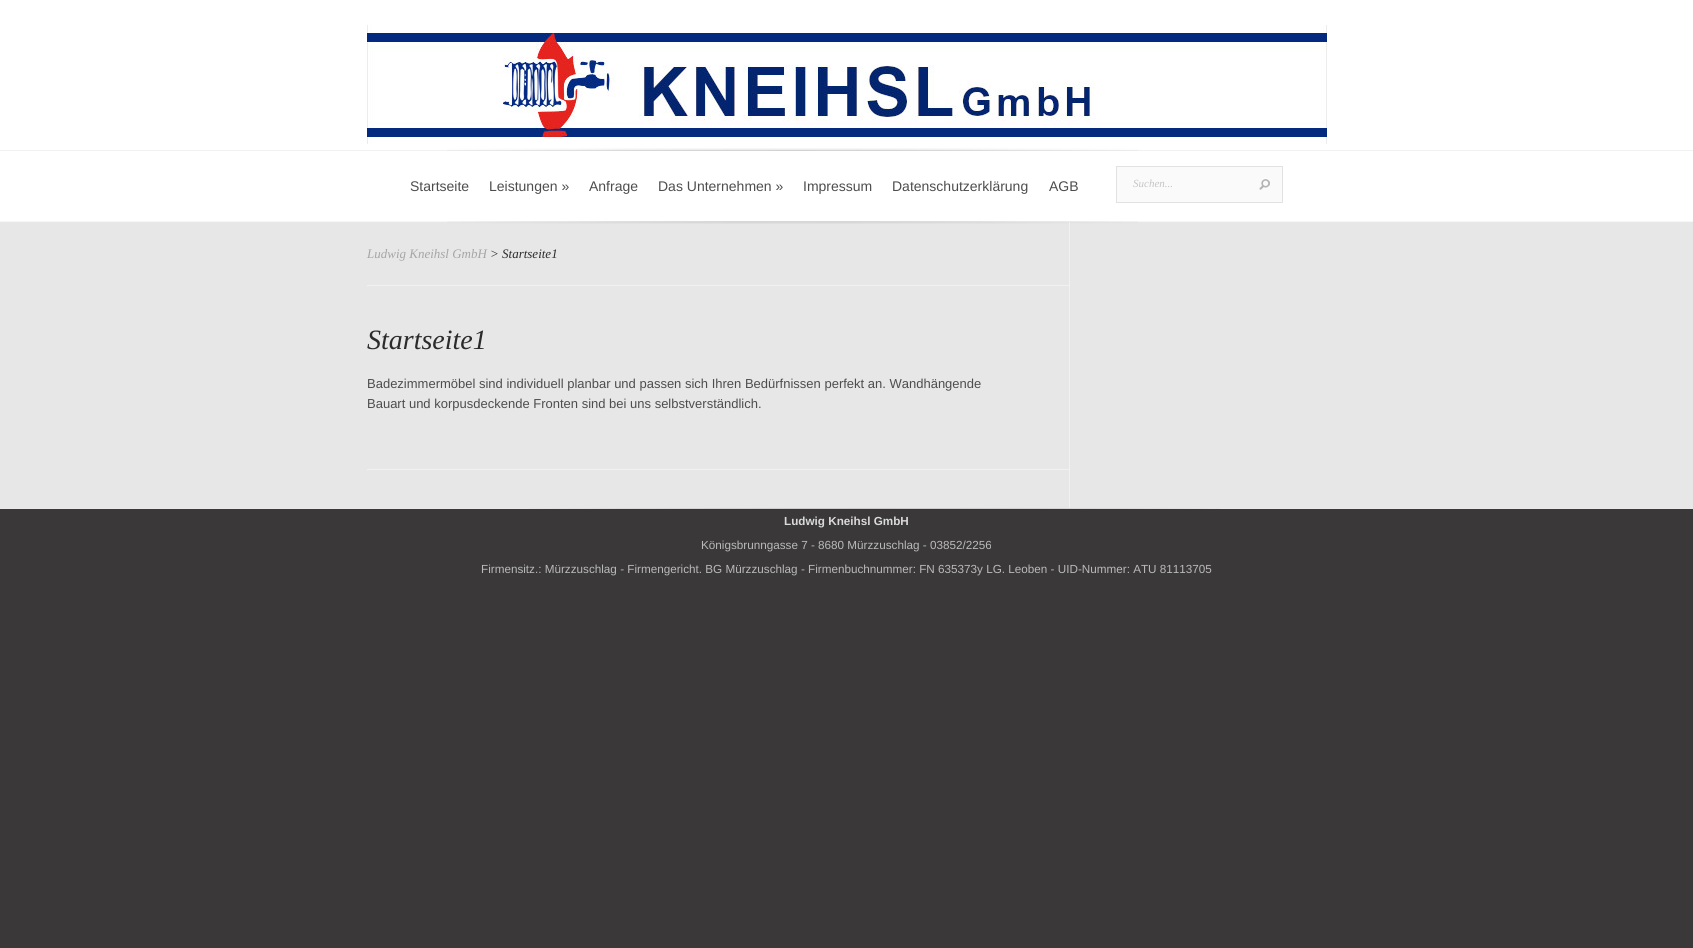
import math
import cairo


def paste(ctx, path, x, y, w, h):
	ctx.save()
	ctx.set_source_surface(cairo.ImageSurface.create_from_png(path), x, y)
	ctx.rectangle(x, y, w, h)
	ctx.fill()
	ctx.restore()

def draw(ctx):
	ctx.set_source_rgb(0.227, 0.22, 0.22)
	ctx.paint()
	ctx.set_source_rgb(1, 1, 1)
	ctx.rectangle(0, 0, 1693, 221)
	ctx.fill()
	paste(ctx, 'media/1.png', 367, 25, 960, 119)
	ctx.set_source_rgb(0.945, 0.945, 0.945)
	ctx.rectangle(0, 150, 1693, 1)
	ctx.fill()
	ctx.set_source_rgb(0.965, 0.965, 0.965)
	ctx.rectangle(0, 221, 1693, 1)
	ctx.fill()
	paste(ctx, 'media/2.png', 447, 148, 691, 3)
	ctx.select_font_face('Liberation Sans')
	ctx.set_font_size(14)
	ctx.set_source_rgb(0.302, 0.302, 0.302)
	for x, y, s in [
		(410, 191, 'Startseite'),
		(489, 191, 'Leistungen »'),
		(589, 191, 'Anfrage'),
		(658, 191, 'Das Unternehmen »'),
		(803, 191, 'Impressum'),
		(892, 191, 'Datenschutzerklärung'),
		(1049, 191, 'AGB'),
	]:
		ctx.move_to(x, y)
		ctx.show_text(s)
	ctx.set_source_rgb(0.98, 0.98, 0.98)
	ctx.rectangle(1116.5, 166.5, 166, 36)
	ctx.fill_preserve()
	ctx.set_source_rgb(0.886, 0.886, 0.886)
	ctx.set_line_width(1)
	ctx.stroke()
	ctx.select_font_face('Liberation Serif', cairo.FONT_SLANT_ITALIC)
	ctx.set_font_size(11)
	ctx.set_source_rgb(0.773, 0.773, 0.773)
	ctx.move_to(1133, 187)
	ctx.show_text('Suchen...')
	paste(ctx, 'media/3.png', 1259, 178, 11, 12)
	ctx.set_source_rgb(0.906, 0.906, 0.91)
	ctx.rectangle(0, 222, 1693, 286)
	ctx.fill()
	paste(ctx, 'media/4.png', 447, 221, 691, 3)
	ctx.set_source_rgb(0.945, 0.945, 0.945)
	ctx.rectangle(1069, 222, 1, 286)
	ctx.fill()
	ctx.rectangle(367, 285, 702, 1)
	ctx.fill()
	ctx.set_font_size(13)
	ctx.set_source_rgb(0.651, 0.651, 0.651)
	ctx.move_to(367, 258)
	ctx.show_text('Ludwig Kneihsl GmbH')
	ctx.set_source_rgb(0.169, 0.169, 0.169)
	ctx.move_to(490, 258)
	ctx.show_text('> Startseite1')
	ctx.set_source_rgb(0.945, 0.945, 0.945)
	ctx.rectangle(367, 469, 702, 1)
	ctx.fill()
	ctx.set_font_size(28)
	ctx.set_source_rgb(0.169, 0.169, 0.169)
	ctx.move_to(367, 349)
	ctx.show_text('Startseite1')
	ctx.select_font_face('Liberation Sans')
	ctx.set_font_size(13)
	ctx.set_source_rgb(0.302, 0.302, 0.302)
	ctx.move_to(367, 388)
	ctx.show_text('Badezimmermöbel sind individuell planbar und passen sich Ihren Bedürfnissen perfekt an. Wandhängende')
	ctx.move_to(367, 408)
	ctx.show_text('Bauart und korpusdeckende Fronten sind bei uns selbstverständlich.')
	ctx.set_source_rgb(0.914, 0.914, 0.914)
	ctx.rectangle(0, 508, 1693, 1)
	ctx.fill()
	paste(ctx, 'media/5.png', 529, 508, 691, 2)
	ctx.select_font_face('Liberation Sans', cairo.FONT_SLANT_NORMAL, cairo.FONT_WEIGHT_BOLD)
	ctx.set_font_size(11.7)
	ctx.set_source_rgb(0.855, 0.855, 0.855)
	ctx.move_to(784, 525)
	ctx.show_text('Ludwig Kneihsl GmbH')
	ctx.select_font_face('Liberation Sans')
	ctx.set_source_rgb(0.729, 0.729, 0.729)
	ctx.move_to(701, 549)
	ctx.show_text('Königsbrunngasse 7 - 8680 Mürzzuschlag - 03852/2256')
	ctx.move_to(481, 573)
	ctx.show_text('Firmensitz.: Mürzzuschlag - Firmengericht. BG Mürzzuschlag - Firmenbuchnummer: FN 635373y LG. Leoben - UID-Nummer: ATU 81113705')


surface = cairo.ImageSurface(cairo.FORMAT_RGB24, 1693, 948)
ctx = cairo.Context(surface)
options = cairo.FontOptions()
options.set_hint_metrics(cairo.HINT_METRICS_OFF)
options.set_hint_style(cairo.HINT_STYLE_NONE)
ctx.set_font_options(options)
ctx.set_miter_limit(4)
draw(ctx)
surface.write_to_png('image.png')
